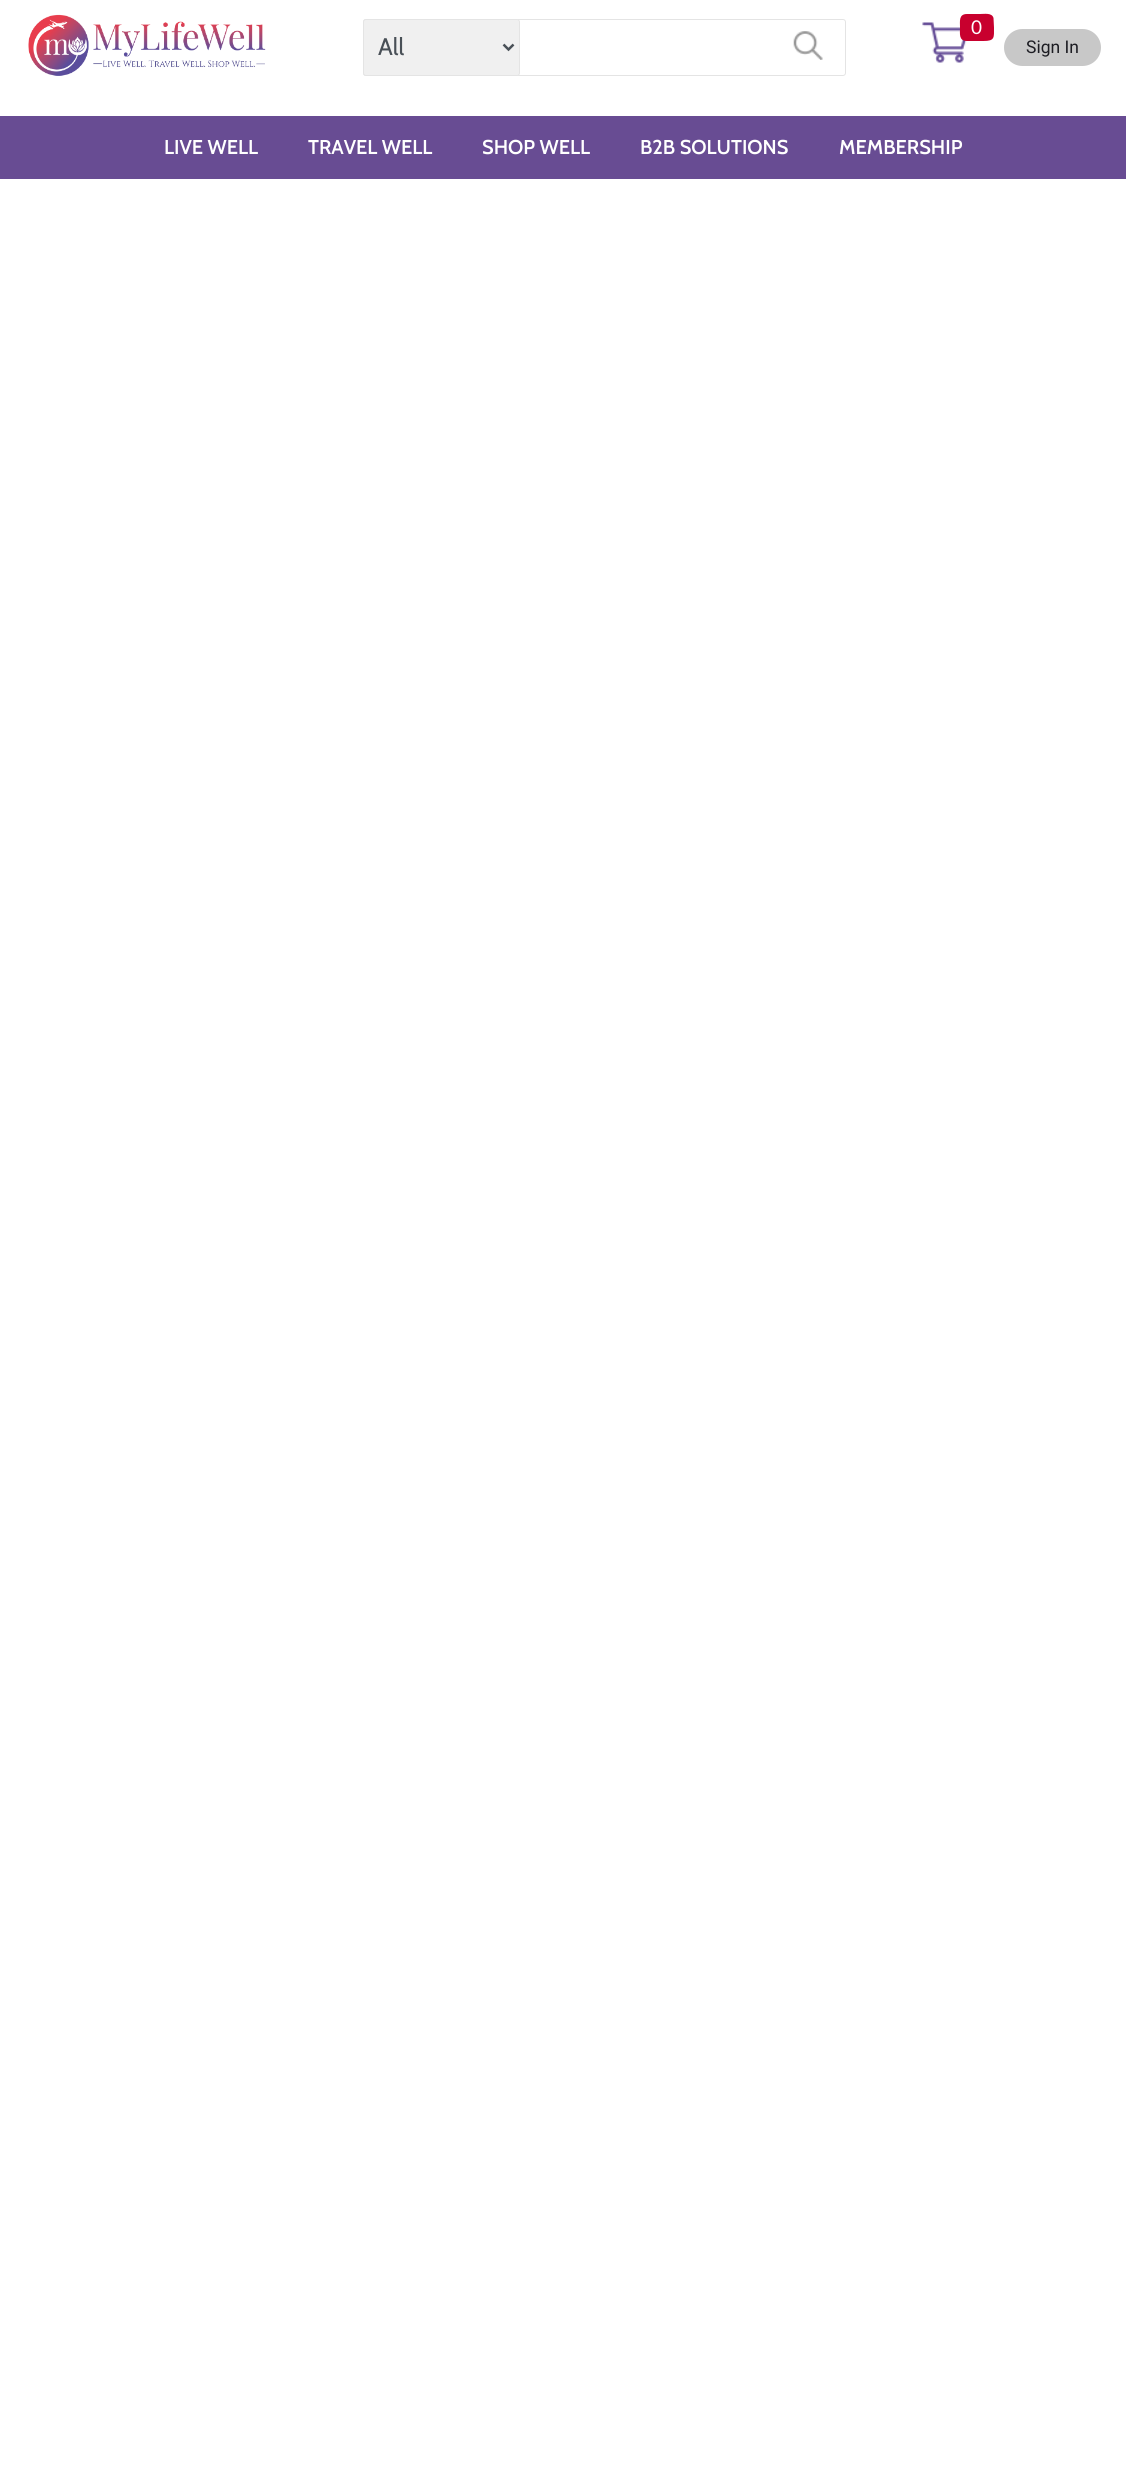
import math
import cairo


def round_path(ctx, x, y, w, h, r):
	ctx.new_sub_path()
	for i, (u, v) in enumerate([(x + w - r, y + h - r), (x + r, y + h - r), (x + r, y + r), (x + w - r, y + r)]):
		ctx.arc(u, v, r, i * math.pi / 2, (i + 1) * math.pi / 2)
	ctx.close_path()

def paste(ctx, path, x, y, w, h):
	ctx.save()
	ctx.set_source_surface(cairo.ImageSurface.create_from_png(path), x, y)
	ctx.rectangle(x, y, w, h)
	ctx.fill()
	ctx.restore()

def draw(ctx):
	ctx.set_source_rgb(1, 1, 1)
	ctx.paint()
	paste(ctx, 'media/1.png', 28, 14, 238, 62)
	round_path(ctx, 363.5, 19.5, 482, 56, 2.5)
	ctx.set_source_rgb(0.894, 0.894, 0.894)
	ctx.set_line_width(1)
	ctx.stroke()
	ctx.set_source_rgb(0.941, 0.941, 0.941)
	round_path(ctx, 363.5, 19.5, 156, 56, 2.5)
	ctx.fill_preserve()
	ctx.set_source_rgb(0.894, 0.894, 0.894)
	ctx.stroke()
	ctx.new_path()
	ctx.move_to(503.5, 44.5)
	ctx.line_to(508.5, 49.5)
	ctx.line_to(513.5, 44.5)
	ctx.set_source_rgb(0.286, 0.314, 0.341)
	ctx.set_line_width(2.5)
	ctx.stroke()
	ctx.select_font_face('Cabin')
	ctx.set_font_size(24)
	ctx.move_to(378, 55)
	ctx.show_text('All')
	paste(ctx, 'media/2.png', 793, 31, 30, 29)
	paste(ctx, 'media/3.png', 922, 22, 45, 41)
	ctx.set_source_rgb(0.784, 0, 0.18)
	ctx.new_path()
	ctx.move_to(967, 14)
	ctx.line_to(980, 14)
	ctx.curve_to(984.5, 14, 992, 12.5, 993.5, 18)
	ctx.line_to(994, 27.5)
	ctx.curve_to(994, 37.5, 995, 41, 983.5, 41)
	ctx.line_to(967, 41)
	ctx.curve_to(958.5, 41, 960, 33.5, 960, 27.5)
	ctx.curve_to(960, 21.5, 958.5, 14, 967, 14)
	ctx.close_path()
	ctx.fill()
	ctx.select_font_face('Lato')
	ctx.set_font_size(19)
	ctx.set_source_rgb(1, 1, 1)
	ctx.move_to(971, 34)
	ctx.show_text('0')
	ctx.set_source_rgb(0.784, 0.784, 0.784)
	round_path(ctx, 1004, 29, 97, 37, 18.5)
	ctx.fill()
	ctx.select_font_face('Roboto')
	ctx.set_font_size(17.5)
	ctx.set_source_rgb(0.114, 0.114, 0.137)
	ctx.move_to(1026, 53)
	ctx.show_text('Sign In')
	ctx.set_source_rgb(0.408, 0.298, 0.576)
	ctx.rectangle(0, 116, 1126, 63)
	ctx.fill()
	ctx.select_font_face('Cabin SemiBold')
	ctx.set_font_size(20)
	ctx.set_source_rgb(1, 1, 1)
	for x, y, s in [
		(164, 154, 'LIVE WELL'),
		(308, 154, 'TRAVEL WELL'),
		(482, 154, 'SHOP WELL'),
		(640, 154, 'B2B SOLUTIONS'),
		(839, 154, 'MEMBERSHIP'),
	]:
		ctx.move_to(x, y)
		ctx.show_text(s)


surface = cairo.ImageSurface(cairo.FORMAT_RGB24, 1126, 2486)
ctx = cairo.Context(surface)
options = cairo.FontOptions()
options.set_hint_metrics(cairo.HINT_METRICS_OFF)
options.set_hint_style(cairo.HINT_STYLE_NONE)
ctx.set_font_options(options)
ctx.set_miter_limit(4)
draw(ctx)
surface.write_to_png('image.png')
